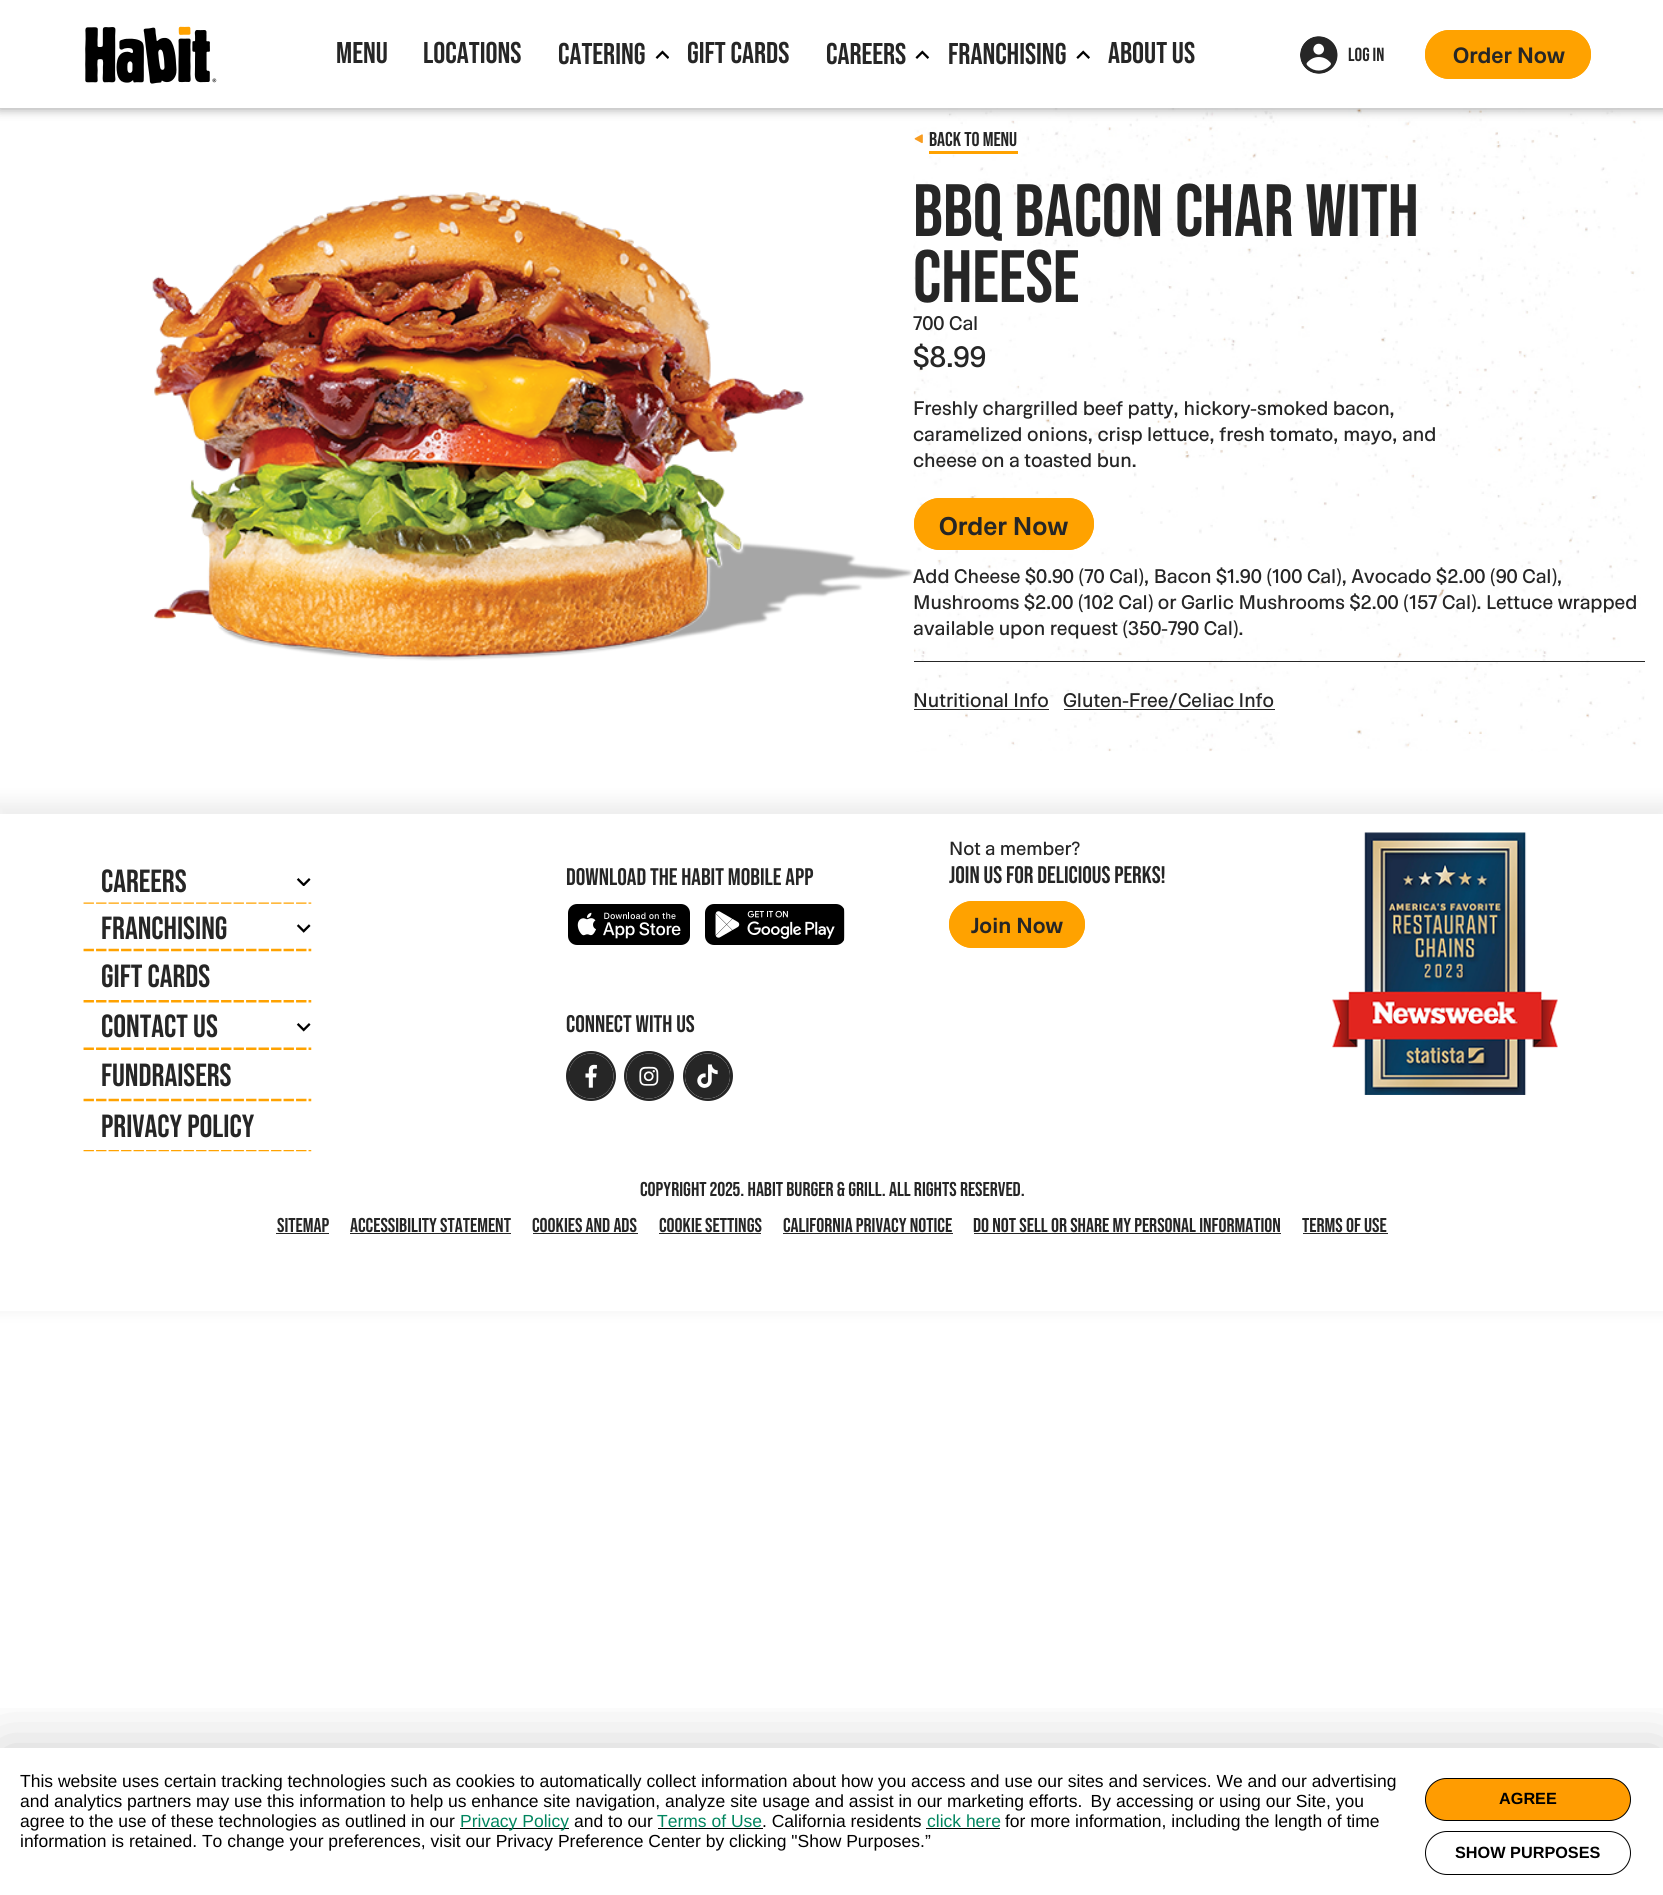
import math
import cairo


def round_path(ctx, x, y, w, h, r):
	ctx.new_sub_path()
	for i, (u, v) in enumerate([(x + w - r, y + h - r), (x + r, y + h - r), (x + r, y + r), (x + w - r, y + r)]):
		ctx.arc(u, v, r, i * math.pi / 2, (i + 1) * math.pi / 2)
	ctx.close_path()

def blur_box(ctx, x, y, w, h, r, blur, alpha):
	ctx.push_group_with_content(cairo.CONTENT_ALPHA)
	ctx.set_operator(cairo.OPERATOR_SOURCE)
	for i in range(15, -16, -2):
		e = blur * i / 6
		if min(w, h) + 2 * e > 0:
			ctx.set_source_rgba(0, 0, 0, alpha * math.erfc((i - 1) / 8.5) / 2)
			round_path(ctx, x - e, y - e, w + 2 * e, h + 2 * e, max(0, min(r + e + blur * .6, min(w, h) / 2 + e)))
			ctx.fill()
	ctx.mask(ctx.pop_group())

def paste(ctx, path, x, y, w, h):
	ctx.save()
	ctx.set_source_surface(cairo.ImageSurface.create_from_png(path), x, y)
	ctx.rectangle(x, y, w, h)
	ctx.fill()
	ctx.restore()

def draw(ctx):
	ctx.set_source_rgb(1, 1, 1)
	ctx.paint()
	paste(ctx, 'media/7.png', 913, 108, 732, 644)
	ctx.set_source_rgb(0, 0, 0)
	blur_box(ctx, -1, -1, 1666, 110, 0, 5.5, 0.38)
	ctx.set_source_rgb(1, 1, 1)
	ctx.rectangle(0, 0, 1663, 108)
	ctx.fill()
	paste(ctx, 'media/1.png', 85, 26, 132, 58)
	ctx.select_font_face('Bebas Neue', cairo.FONT_SLANT_NORMAL, cairo.FONT_WEIGHT_BOLD)
	ctx.set_font_size(30)
	ctx.set_source_rgb(0.149, 0.149, 0.149)
	for x, y, s in [
		(336, 63, 'MENU'),
		(423, 63, 'LOCATIONS'),
		(558, 64, 'CATERING'),
	]:
		ctx.move_to(x, y)
		ctx.show_text(s)
	paste(ctx, 'media/2.png', 655, 50, 14, 9)
	ctx.move_to(687, 63)
	ctx.show_text('GIFT CARDS')
	ctx.move_to(826, 64)
	ctx.show_text('CAREERS')
	paste(ctx, 'media/3.png', 915, 50, 15, 9)
	ctx.move_to(948, 64)
	ctx.show_text('FRANCHISING')
	paste(ctx, 'media/4.png', 1076, 50, 14, 9)
	ctx.move_to(1108, 63)
	ctx.show_text('ABOUT US')
	paste(ctx, 'media/5.png', 1300, 36, 38, 38)
	ctx.set_font_size(19)
	ctx.move_to(1348, 61)
	ctx.show_text('LOG IN')
	round_path(ctx, 1425.5, 30.5, 165, 48, 24)
	ctx.set_source_rgb(1, 0.635, 0)
	ctx.set_line_width(1)
	ctx.stroke()
	round_path(ctx, 1425, 30, 166, 49, 24.5)
	ctx.fill()
	ctx.select_font_face('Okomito', cairo.FONT_SLANT_NORMAL, cairo.FONT_WEIGHT_BOLD)
	ctx.set_font_size(22.5)
	ctx.set_source_rgb(0.149, 0.149, 0.149)
	ctx.move_to(1453, 63)
	ctx.show_text('Order Now')
	paste(ctx, 'media/6.png', 152, 192, 761, 469)
	paste(ctx, 'media/8.png', 914, 134, 9, 10)
	ctx.select_font_face('Bebas Neue', cairo.FONT_SLANT_NORMAL, cairo.FONT_WEIGHT_BOLD)
	ctx.set_font_size(20)
	ctx.move_to(929, 146)
	ctx.show_text('BACK TO MENU')
	ctx.set_source_rgb(1, 0.635, 0)
	ctx.rectangle(929, 151, 89, 3)
	ctx.fill()
	ctx.set_font_size(74)
	ctx.set_source_rgb(0.149, 0.149, 0.149)
	ctx.move_to(913, 236)
	ctx.show_text('BBQ BACON CHAR WITH')
	ctx.move_to(913, 302)
	ctx.show_text('CHEESE')
	ctx.select_font_face('Okomito Medium')
	ctx.set_font_size(20)
	ctx.move_to(913, 330)
	ctx.show_text('700 Cal')
	ctx.set_font_size(30)
	ctx.move_to(913, 367)
	ctx.show_text('$8.99')
	ctx.set_font_size(20)
	for x, y, s in [
		(913, 415, 'Freshly chargrilled beef patty, hickory-smoked bacon,'),
		(913, 441, 'caramelized onions, crisp lettuce, fresh tomato, mayo, and'),
		(913, 467, 'cheese on a toasted bun.'),
	]:
		ctx.move_to(x, y)
		ctx.show_text(s)
	round_path(ctx, 914.5, 498.5, 179, 51, 25.5)
	ctx.set_source_rgb(1, 0.635, 0)
	ctx.stroke()
	round_path(ctx, 914, 498, 180, 52, 26)
	ctx.fill()
	ctx.select_font_face('Okomito', cairo.FONT_SLANT_NORMAL, cairo.FONT_WEIGHT_BOLD)
	ctx.set_font_size(26)
	ctx.set_source_rgb(0.149, 0.149, 0.149)
	ctx.move_to(939, 535)
	ctx.show_text('Order Now')
	ctx.select_font_face('Okomito Medium')
	ctx.set_font_size(20)
	for x, y, s in [
		(913, 583, 'Add Cheese $0.90 (70 Cal), Bacon $1.90 (100 Cal), Avocado $2.00 (90 Cal),'),
		(913, 609, 'Mushrooms $2.00 (102 Cal) or Garlic Mushrooms $2.00 (157 Cal). Lettuce wrapped'),
		(913, 635, 'available upon request (350-790 Cal).'),
	]:
		ctx.move_to(x, y)
		ctx.show_text(s)
	ctx.rectangle(914, 661, 731, 1)
	ctx.fill()
	ctx.move_to(913, 707)
	ctx.show_text('Nutritional Info')
	ctx.rectangle(914, 709, 135, 1)
	ctx.fill()
	ctx.move_to(1063, 707)
	ctx.show_text('Gluten-Free/Celiac Info')
	ctx.rectangle(1064, 709, 211, 1)
	ctx.fill()
	ctx.save()
	ctx.set_fill_rule(cairo.FILL_RULE_EVEN_ODD)
	ctx.new_path()
	ctx.move_to(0, 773)
	ctx.line_to(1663, 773)
	ctx.line_to(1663, 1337)
	ctx.line_to(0, 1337)
	ctx.close_path()
	ctx.move_to(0, 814)
	ctx.line_to(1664, 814)
	ctx.line_to(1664, 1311)
	ctx.line_to(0, 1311)
	ctx.close_path()
	ctx.clip()
	ctx.set_source_rgb(0, 0, 0)
	blur_box(ctx, -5, 801, 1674, 508, 0, 9, 0.07)
	ctx.restore()
	paste(ctx, 'media/9.png', 296, 878, 15, 8)
	paste(ctx, 'media/10.png', 83, 902, 229, 2)
	ctx.select_font_face('Bebas Neue', cairo.FONT_SLANT_NORMAL, cairo.FONT_WEIGHT_BOLD)
	ctx.set_font_size(32)
	ctx.move_to(101, 892)
	ctx.show_text('CAREERS')
	paste(ctx, 'media/11.png', 296, 924, 15, 9)
	paste(ctx, 'media/12.png', 83, 948, 229, 4)
	ctx.move_to(101, 939)
	ctx.show_text('FRANCHISING')
	paste(ctx, 'media/13.png', 83, 1000, 229, 3)
	ctx.move_to(101, 987)
	ctx.show_text('GIFT CARDS')
	paste(ctx, 'media/14.png', 296, 1023, 15, 9)
	paste(ctx, 'media/15.png', 83, 1047, 229, 3)
	ctx.move_to(101, 1037)
	ctx.show_text('CONTACT US')
	paste(ctx, 'media/12.png', 83, 1098, 229, 4)
	ctx.move_to(101, 1086)
	ctx.show_text('FUNDRAISERS')
	paste(ctx, 'media/16.png', 83, 1150, 229, 2)
	ctx.move_to(101, 1137)
	ctx.show_text('PRIVACY POLICY')
	ctx.set_font_size(24)
	ctx.move_to(566, 885)
	ctx.show_text('DOWNLOAD THE HABIT MOBILE APP')
	paste(ctx, 'media/17.png', 568, 904, 122, 41)
	paste(ctx, 'media/18.png', 705, 904, 140, 41)
	ctx.select_font_face('Okomito Medium')
	ctx.set_font_size(19.25)
	ctx.move_to(949, 855)
	ctx.show_text('Not a member?')
	ctx.select_font_face('Bebas Neue', cairo.FONT_SLANT_NORMAL, cairo.FONT_WEIGHT_BOLD)
	ctx.set_font_size(24)
	ctx.move_to(949, 883)
	ctx.show_text('JOIN US FOR DELICIOUS PERKS!')
	round_path(ctx, 949.5, 901.5, 135, 46, 23)
	ctx.set_source_rgb(1, 0.635, 0)
	ctx.stroke()
	round_path(ctx, 949, 901, 136, 47, 23.5)
	ctx.fill()
	ctx.select_font_face('Okomito', cairo.FONT_SLANT_NORMAL, cairo.FONT_WEIGHT_BOLD)
	ctx.set_font_size(22)
	ctx.set_source_rgb(0.149, 0.149, 0.149)
	ctx.move_to(971, 933)
	ctx.show_text('Join Now')
	paste(ctx, 'media/19.png', 1332, 832, 226, 263)
	ctx.select_font_face('Bebas Neue', cairo.FONT_SLANT_NORMAL, cairo.FONT_WEIGHT_BOLD)
	ctx.set_font_size(24)
	ctx.move_to(566, 1032)
	ctx.show_text('CONNECT WITH US')
	ctx.new_path()
	ctx.arc(591, 1076, 25, 0, 2 * math.pi)
	ctx.fill()
	paste(ctx, 'media/20.png', 569, 1053, 45, 46)
	ctx.arc(649, 1076, 25, 0, 2 * math.pi)
	ctx.fill()
	paste(ctx, 'media/21.png', 626, 1053, 45, 46)
	ctx.arc(708, 1076, 25, 0, 2 * math.pi)
	ctx.fill()
	paste(ctx, 'media/22.png', 685, 1053, 45, 46)
	ctx.set_font_size(20)
	ctx.move_to(640, 1196)
	ctx.show_text('COPYRIGHT 2025. HABIT BURGER & GRILL. ALL RIGHTS RESERVED.')
	ctx.move_to(277, 1232)
	ctx.show_text('SITEMAP')
	ctx.rectangle(276, 1233, 53, 1)
	ctx.fill()
	ctx.move_to(350, 1232)
	ctx.show_text('ACCESSIBILITY STATEMENT')
	ctx.rectangle(350, 1233, 161, 1)
	ctx.fill()
	ctx.move_to(532, 1232)
	ctx.show_text('COOKIES AND ADS')
	ctx.rectangle(533, 1233, 105, 1)
	ctx.fill()
	ctx.move_to(659, 1232)
	ctx.show_text('COOKIE SETTINGS')
	ctx.rectangle(659, 1233, 102, 1)
	ctx.fill()
	ctx.move_to(783, 1232)
	ctx.show_text('CALIFORNIA PRIVACY NOTICE')
	ctx.rectangle(783, 1233, 170, 1)
	ctx.fill()
	ctx.move_to(973, 1232)
	ctx.show_text('DO NOT SELL OR SHARE MY PERSONAL INFORMATION')
	ctx.rectangle(974, 1233, 307, 1)
	ctx.fill()
	ctx.move_to(1302, 1232)
	ctx.show_text('TERMS OF USE')
	ctx.rectangle(1303, 1233, 85, 1)
	ctx.fill()
	ctx.save()
	ctx.rectangle(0, 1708, 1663, 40)
	ctx.clip()
	ctx.set_source_rgb(0, 0, 0)
	blur_box(ctx, 0, 1748, 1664, 147, 0, 31, 0.2)
	ctx.restore()
	ctx.select_font_face('Liberation Sans')
	ctx.set_font_size(17.5)
	ctx.set_source_rgb(0, 0, 0)
	for x, y, s in [
		(20, 1787, 'This website uses certain tracking technologies such as cookies to automatically collect information about how you access and use our sites and services. We and our advertising'),
		(20, 1807, 'and analytics partners may use this information to help us enhance site navigation, analyze site usage and assist in our marketing efforts.  By accessing or using our Site, you'),
		(20, 1827, 'agree to the use of these technologies as outlined in our'),
	]:
		ctx.move_to(x, y)
		ctx.show_text(s)
	ctx.rectangle(460, 1828, 109, 1)
	ctx.fill()
	ctx.set_source_rgb(0, 0.522, 0.369)
	ctx.move_to(460, 1827)
	ctx.show_text('Privacy Policy')
	ctx.set_source_rgb(0, 0, 0)
	ctx.move_to(574, 1827)
	ctx.show_text('and to our')
	ctx.set_source_rgb(0, 0.522, 0.369)
	ctx.move_to(657, 1827)
	ctx.show_text('Terms of Use')
	ctx.set_source_rgb(0, 0, 0)
	ctx.rectangle(658, 1828, 105, 1)
	ctx.fill()
	ctx.move_to(762, 1827)
	ctx.show_text('. California residents')
	ctx.set_source_rgb(0, 0.522, 0.369)
	ctx.move_to(927, 1827)
	ctx.show_text('click here')
	ctx.set_source_rgb(0, 0, 0)
	ctx.rectangle(926, 1828, 74, 1)
	ctx.fill()
	ctx.move_to(1005, 1827)
	ctx.show_text('for more information, including the length of time')
	ctx.move_to(20, 1847)
	ctx.show_text('information is retained. To change your preferences, visit our Privacy Preference Center by clicking "Show Purposes.”')
	ctx.set_source_rgb(1, 0.612, 0.004)
	round_path(ctx, 1425.5, 1778.5, 205, 42, 21)
	ctx.fill_preserve()
	ctx.set_source_rgb(0, 0, 0)
	ctx.stroke()
	ctx.select_font_face('Liberation Sans', cairo.FONT_SLANT_NORMAL, cairo.FONT_WEIGHT_BOLD)
	ctx.set_font_size(16.25)
	ctx.move_to(1499, 1804)
	ctx.show_text('AGREE')
	round_path(ctx, 1425.5, 1831.5, 205, 43, 21.5)
	ctx.stroke()
	ctx.move_to(1455, 1858)
	ctx.show_text('SHOW PURPOSES')


surface = cairo.ImageSurface(cairo.FORMAT_RGB24, 1663, 1895)
ctx = cairo.Context(surface)
options = cairo.FontOptions()
options.set_hint_metrics(cairo.HINT_METRICS_OFF)
options.set_hint_style(cairo.HINT_STYLE_NONE)
ctx.set_font_options(options)
ctx.set_miter_limit(4)
draw(ctx)
surface.write_to_png('image.png')
